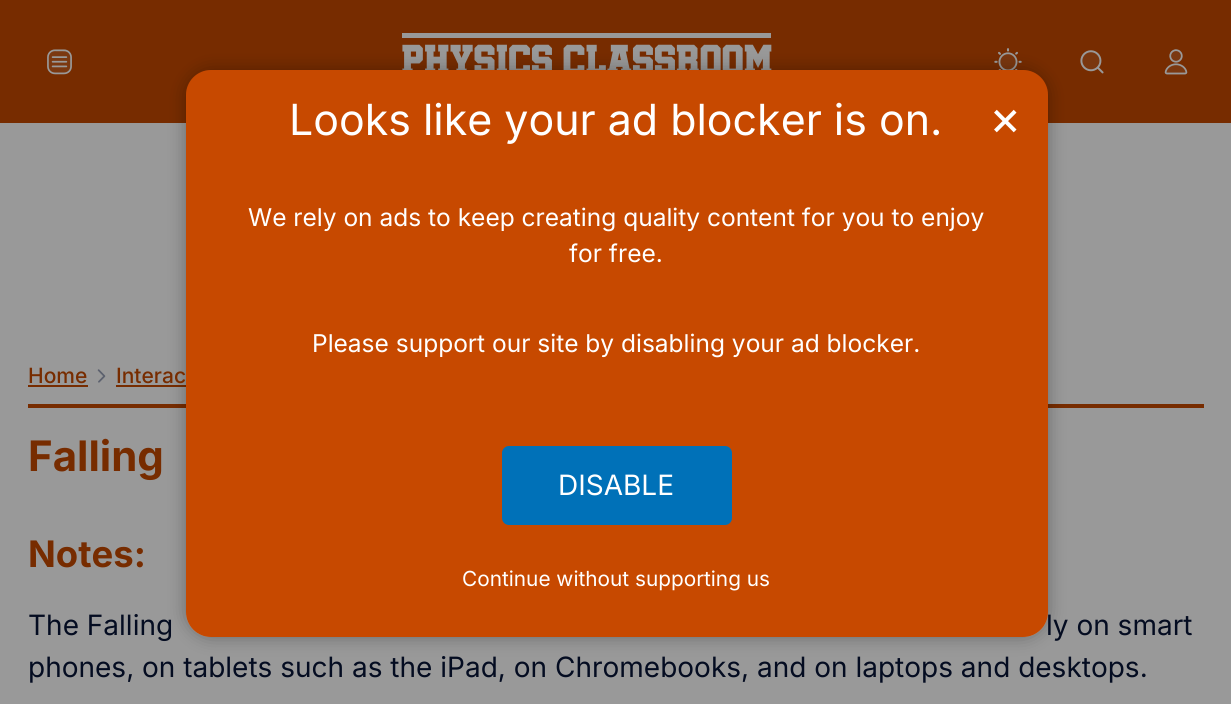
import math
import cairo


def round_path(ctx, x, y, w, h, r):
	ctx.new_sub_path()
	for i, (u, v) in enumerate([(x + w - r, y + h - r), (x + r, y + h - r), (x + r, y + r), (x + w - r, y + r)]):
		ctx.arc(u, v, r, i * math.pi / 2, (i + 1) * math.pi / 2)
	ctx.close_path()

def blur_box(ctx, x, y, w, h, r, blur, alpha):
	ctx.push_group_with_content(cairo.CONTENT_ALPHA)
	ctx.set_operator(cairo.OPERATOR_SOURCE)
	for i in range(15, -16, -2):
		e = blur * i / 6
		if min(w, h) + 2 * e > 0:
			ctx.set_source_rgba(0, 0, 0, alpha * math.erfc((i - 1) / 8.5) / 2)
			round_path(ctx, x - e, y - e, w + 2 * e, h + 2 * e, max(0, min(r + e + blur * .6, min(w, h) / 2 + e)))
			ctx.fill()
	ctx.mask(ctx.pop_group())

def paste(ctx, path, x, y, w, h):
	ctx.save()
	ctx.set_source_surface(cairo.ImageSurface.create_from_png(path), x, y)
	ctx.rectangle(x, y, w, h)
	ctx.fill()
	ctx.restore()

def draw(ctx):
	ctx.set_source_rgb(0.6, 0.6, 0.6)
	ctx.paint()
	ctx.set_source_rgb(0.467, 0.173, 0)
	ctx.rectangle(0, 0, 1231, 123)
	ctx.fill()
	paste(ctx, 'media/1.png', 47, 49, 25, 26)
	paste(ctx, 'media/2.png', 47, 51, 25, 23)
	paste(ctx, 'media/3.png', 402, 33, 370, 37)
	paste(ctx, 'media/4.png', 994, 48, 28, 22)
	ctx.set_source_rgba(0.6, 0.6, 0.6, 0.1)
	ctx.new_path()
	ctx.move_to(1017.5, 62)
	ctx.curve_to(1017.5, 74, 998.5, 74, 998.5, 62)
	ctx.curve_to(998.5, 49.5, 1017.5, 49.5, 1017.5, 62)
	ctx.close_path()
	ctx.fill()
	paste(ctx, 'media/5.png', 1080, 50, 24, 24)
	ctx.new_path()
	ctx.move_to(1101, 61)
	ctx.curve_to(1101, 74, 1080.5, 74, 1080.5, 61)
	ctx.curve_to(1080.5, 47.5, 1101, 47.5, 1101, 61)
	ctx.close_path()
	ctx.fill()
	paste(ctx, 'media/6.png', 1164, 49, 24, 26)
	paste(ctx, 'media/7.png', 1165, 49, 22, 26)
	ctx.set_source_rgb(0.467, 0.173, 0)
	ctx.rectangle(28, 404, 1176, 4)
	ctx.fill()
	ctx.rectangle(116, 385, 70, 2)
	ctx.fill()
	ctx.save()
	ctx.set_fill_rule(cairo.FILL_RULE_EVEN_ODD)
	ctx.new_path()
	ctx.move_to(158, 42)
	ctx.line_to(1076, 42)
	ctx.line_to(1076, 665)
	ctx.line_to(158, 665)
	ctx.close_path()
	ctx.move_to(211, 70)
	ctx.line_to(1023, 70)
	ctx.curve_to(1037, 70, 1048, 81, 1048, 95)
	ctx.line_to(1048, 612)
	ctx.curve_to(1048, 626, 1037, 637, 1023, 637)
	ctx.line_to(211, 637)
	ctx.curve_to(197, 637, 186, 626, 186, 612)
	ctx.line_to(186, 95)
	ctx.curve_to(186, 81, 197, 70, 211, 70)
	ctx.close_path()
	ctx.clip()
	ctx.set_source_rgb(0, 0, 0)
	blur_box(ctx, 186, 70, 862, 567, 25, 9, 0.3)
	ctx.restore()
	ctx.select_font_face('Inter')
	ctx.set_font_size(28)
	ctx.set_source_rgb(0.016, 0.047, 0.129)
	ctx.move_to(1046, 635)
	ctx.show_text('ly on smart')
	ctx.set_source_rgb(0.78, 0.286, 0)
	round_path(ctx, 186, 70, 862, 567, 25)
	ctx.fill()
	ctx.set_font_size(42.9)
	ctx.set_source_rgb(1, 1, 1)
	ctx.move_to(289, 135)
	ctx.show_text('Looks like your ad blocker is on.')
	ctx.set_font_size(49)
	ctx.move_to(989, 135)
	ctx.show_text('×')
	ctx.set_font_size(24.5)
	for x, y, s in [
		(248, 226, 'We rely on ads to keep creating quality content for you to enjoy'),
		(569, 262, 'for free.'),
		(312, 352, 'Please support our site by disabling your ad blocker.'),
	]:
		ctx.move_to(x, y)
		ctx.show_text(s)
	ctx.set_source_rgb(0, 0.443, 0.722)
	round_path(ctx, 502, 446, 230, 79, 7)
	ctx.fill()
	ctx.set_font_size(28)
	ctx.set_source_rgb(1, 1, 1)
	ctx.move_to(558, 495)
	ctx.show_text('DISABLE')
	ctx.set_font_size(20.8)
	ctx.move_to(462, 586)
	ctx.show_text('Continue without supporting us')
	ctx.select_font_face('Inter Medium')
	ctx.set_font_size(21)
	ctx.set_source_rgb(0.467, 0.173, 0)
	ctx.move_to(28, 383)
	ctx.show_text('Home')
	ctx.rectangle(28, 385, 60, 2)
	ctx.fill()
	paste(ctx, 'media/8.png', 97, 369, 9, 14)
	ctx.move_to(116, 383)
	ctx.show_text('Interac')
	ctx.select_font_face('Inter', cairo.FONT_SLANT_NORMAL, cairo.FONT_WEIGHT_BOLD)
	ctx.set_font_size(42)
	ctx.move_to(28, 471)
	ctx.show_text('Falling')
	ctx.set_font_size(36.5)
	ctx.move_to(28, 567)
	ctx.show_text('Notes:')
	ctx.select_font_face('Inter')
	ctx.set_font_size(28)
	ctx.set_source_rgb(0.016, 0.047, 0.129)
	ctx.move_to(28, 635)
	ctx.show_text('The Falling')
	ctx.move_to(28, 677)
	ctx.show_text('phones, on tablets such as the iPad, on Chromebooks, and on laptops and desktops.')


surface = cairo.ImageSurface(cairo.FORMAT_RGB24, 1231, 704)
ctx = cairo.Context(surface)
options = cairo.FontOptions()
options.set_hint_metrics(cairo.HINT_METRICS_OFF)
options.set_hint_style(cairo.HINT_STYLE_NONE)
ctx.set_font_options(options)
ctx.set_miter_limit(4)
draw(ctx)
surface.write_to_png('image.png')
